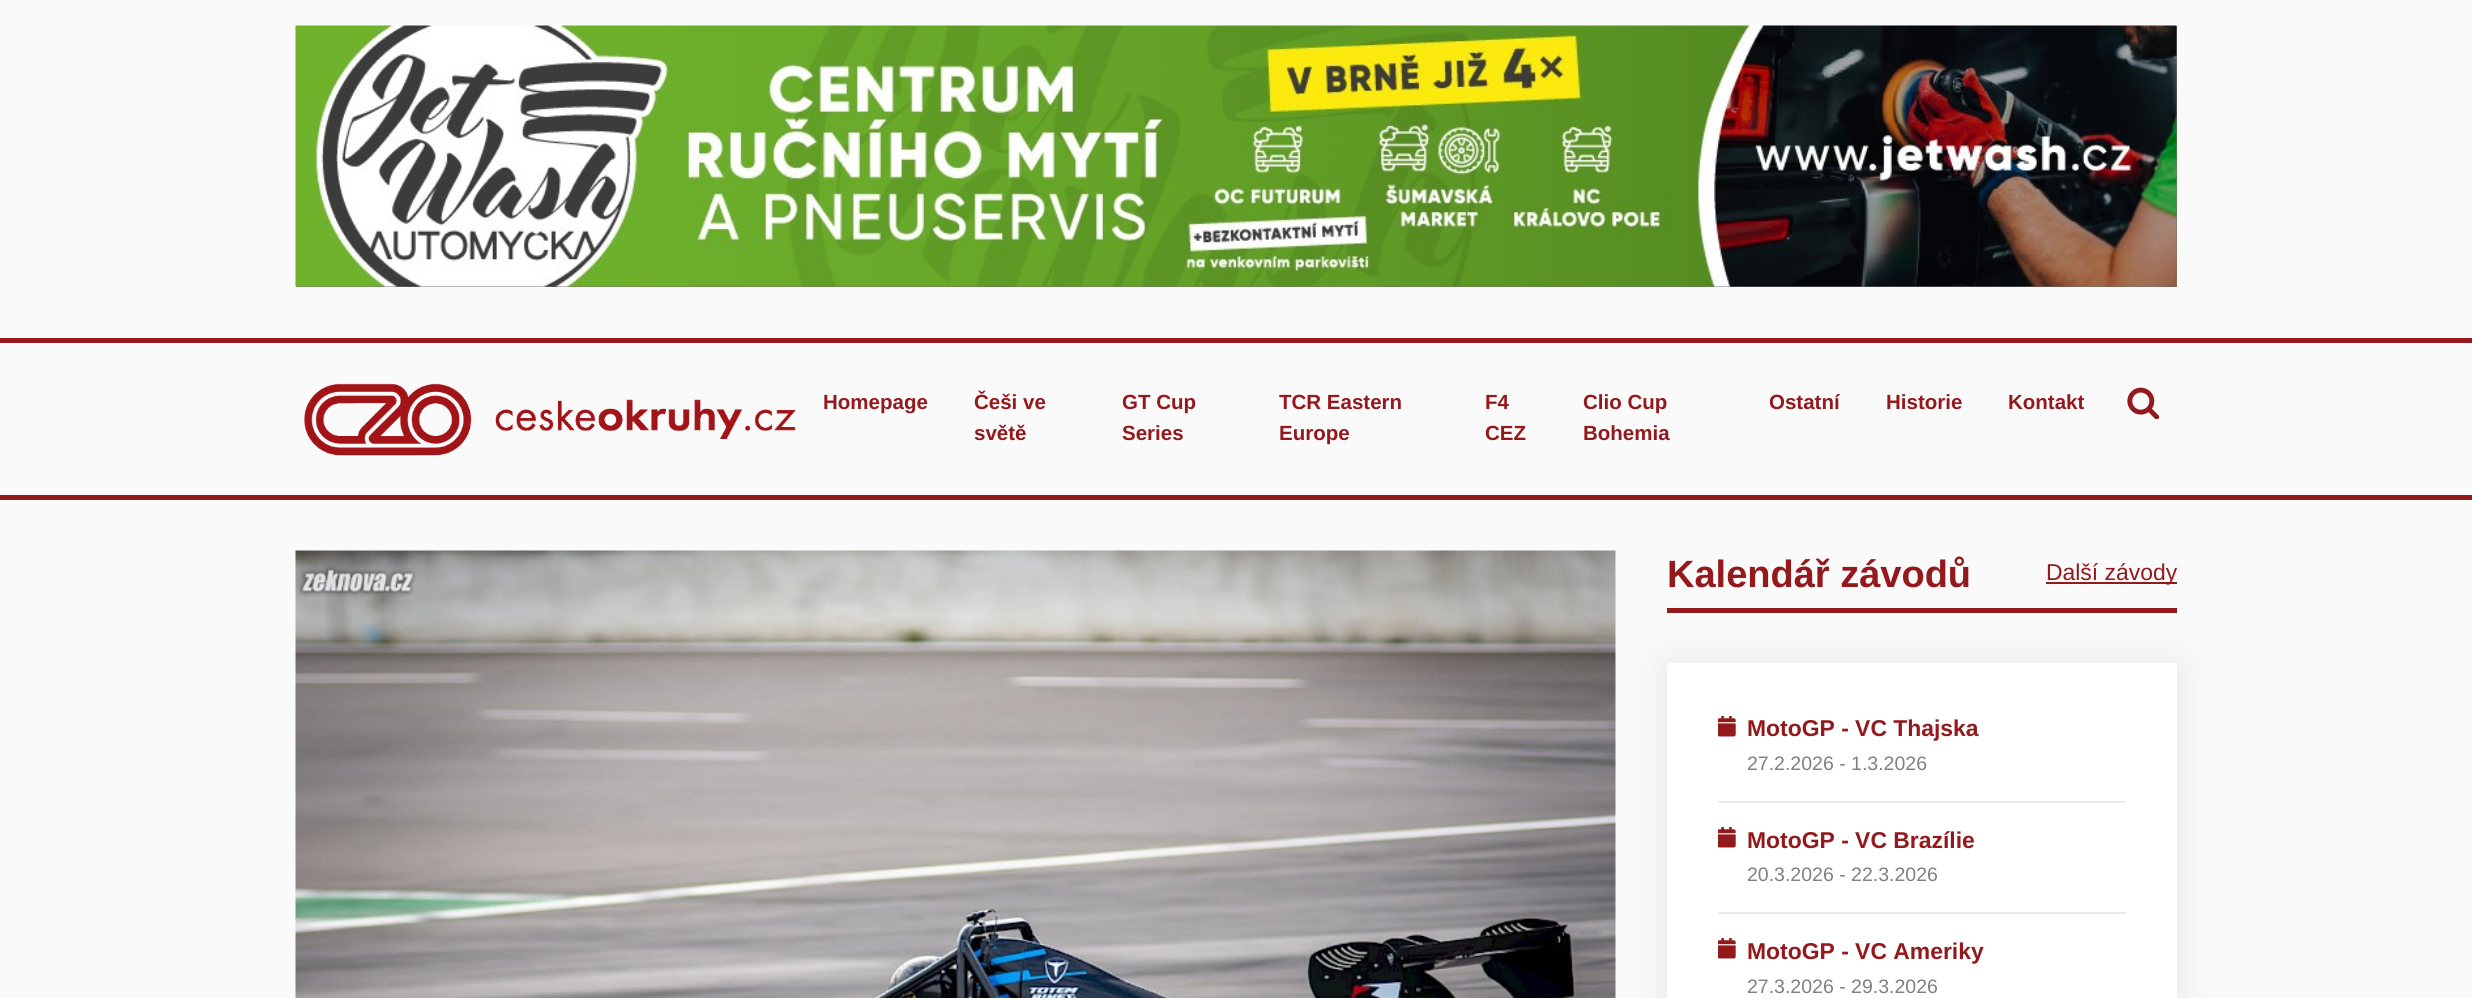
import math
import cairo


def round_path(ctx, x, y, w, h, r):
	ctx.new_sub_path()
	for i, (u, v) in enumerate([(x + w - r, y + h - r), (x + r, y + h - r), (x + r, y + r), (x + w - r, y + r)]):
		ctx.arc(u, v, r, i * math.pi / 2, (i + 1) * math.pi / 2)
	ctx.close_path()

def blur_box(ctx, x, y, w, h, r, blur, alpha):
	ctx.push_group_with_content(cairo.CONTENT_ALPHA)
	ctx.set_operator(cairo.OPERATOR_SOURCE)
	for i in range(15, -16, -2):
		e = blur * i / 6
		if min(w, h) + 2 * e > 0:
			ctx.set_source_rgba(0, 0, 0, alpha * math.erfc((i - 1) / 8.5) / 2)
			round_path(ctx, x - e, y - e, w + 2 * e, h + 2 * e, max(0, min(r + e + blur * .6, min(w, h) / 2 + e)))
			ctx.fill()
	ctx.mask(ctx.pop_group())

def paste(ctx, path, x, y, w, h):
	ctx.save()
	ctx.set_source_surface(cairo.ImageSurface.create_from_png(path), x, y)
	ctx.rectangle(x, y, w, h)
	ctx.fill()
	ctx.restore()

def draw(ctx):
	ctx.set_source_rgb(0.98, 0.98, 0.98)
	ctx.paint()
	ctx.set_source_rgb(0.443, 0.443, 0.443)
	ctx.rectangle(296, 26, 1881, 261)
	ctx.fill()
	paste(ctx, 'media/1.png', 295, 25, 1882, 262)
	ctx.set_source_rgb(0.576, 0.098, 0.114)
	ctx.rectangle(0, 338, 2472, 5)
	ctx.fill()
	ctx.rectangle(0, 495, 2472, 5)
	ctx.fill()
	paste(ctx, 'media/2.png', 304, 383, 492, 73)
	ctx.select_font_face('Liberation Sans', cairo.FONT_SLANT_NORMAL, cairo.FONT_WEIGHT_BOLD)
	ctx.set_font_size(20.5)
	for x, y, s in [
		(823, 409, 'Homepage'),
		(974, 409, 'Češi ve'),
		(974, 440, 'světě'),
		(1122, 409, 'GT Cup'),
		(1122, 440, 'Series'),
		(1279, 409, 'TCR Eastern'),
		(1279, 440, 'Europe'),
		(1485, 409, 'F4'),
		(1485, 440, 'CEZ'),
		(1583, 409, 'Clio Cup'),
		(1583, 440, 'Bohemia'),
		(1769, 409, 'Ostatní'),
		(1886, 409, 'Historie'),
		(2008, 409, 'Kontakt'),
	]:
		ctx.move_to(x, y)
		ctx.show_text(s)
	paste(ctx, 'media/3.png', 2127, 387, 33, 32)
	paste(ctx, 'media/4.png', 295, 550, 1321, 448)
	ctx.set_source_rgb(0, 0, 0)
	blur_box(ctx, 1667, 666, 510, 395, 0, 21, 0.09)
	ctx.set_source_rgb(0.576, 0.098, 0.114)
	ctx.rectangle(1667, 608, 510, 5)
	ctx.fill()
	ctx.set_font_size(38)
	ctx.move_to(1667, 587)
	ctx.show_text('Kalendář závodů')
	ctx.rectangle(2046, 582, 131, 2)
	ctx.fill()
	ctx.select_font_face('Liberation Sans')
	ctx.set_font_size(22.9)
	ctx.move_to(2046, 580)
	ctx.show_text('Další závody')
	ctx.set_source_rgb(1, 1, 1)
	ctx.rectangle(1667, 663, 510, 335)
	ctx.fill()
	paste(ctx, 'media/5.png', 1718, 716, 18, 21)
	ctx.select_font_face('Liberation Sans', cairo.FONT_SLANT_NORMAL, cairo.FONT_WEIGHT_BOLD)
	ctx.set_source_rgb(0.576, 0.098, 0.114)
	ctx.move_to(1747, 736)
	ctx.show_text('MotoGP - VC Thajska')
	ctx.select_font_face('Liberation Sans')
	ctx.set_font_size(19.5)
	ctx.set_source_rgb(0.502, 0.502, 0.502)
	ctx.move_to(1747, 770)
	ctx.show_text('27.2.2026 - 1.3.2026')
	ctx.set_source_rgb(0.918, 0.918, 0.918)
	ctx.rectangle(1718, 801, 408, 2)
	ctx.fill()
	paste(ctx, 'media/5.png', 1718, 827, 18, 21)
	ctx.select_font_face('Liberation Sans', cairo.FONT_SLANT_NORMAL, cairo.FONT_WEIGHT_BOLD)
	ctx.set_font_size(22.9)
	ctx.set_source_rgb(0.576, 0.098, 0.114)
	ctx.move_to(1747, 848)
	ctx.show_text('MotoGP - VC Brazílie')
	ctx.select_font_face('Liberation Sans')
	ctx.set_font_size(19.5)
	ctx.set_source_rgb(0.502, 0.502, 0.502)
	ctx.move_to(1747, 881)
	ctx.show_text('20.3.2026 - 22.3.2026')
	ctx.set_source_rgb(0.918, 0.918, 0.918)
	ctx.rectangle(1718, 912, 408, 2)
	ctx.fill()
	paste(ctx, 'media/5.png', 1718, 938, 18, 21)
	ctx.select_font_face('Liberation Sans', cairo.FONT_SLANT_NORMAL, cairo.FONT_WEIGHT_BOLD)
	ctx.set_font_size(22.9)
	ctx.set_source_rgb(0.576, 0.098, 0.114)
	ctx.move_to(1747, 959)
	ctx.show_text('MotoGP - VC Ameriky')
	ctx.select_font_face('Liberation Sans')
	ctx.set_font_size(19.5)
	ctx.set_source_rgb(0.502, 0.502, 0.502)
	ctx.move_to(1747, 993)
	ctx.show_text('27.3.2026 - 29.3.2026')


surface = cairo.ImageSurface(cairo.FORMAT_RGB24, 2472, 998)
ctx = cairo.Context(surface)
options = cairo.FontOptions()
options.set_hint_metrics(cairo.HINT_METRICS_OFF)
options.set_hint_style(cairo.HINT_STYLE_NONE)
ctx.set_font_options(options)
ctx.set_miter_limit(4)
draw(ctx)
surface.write_to_png('image.png')
